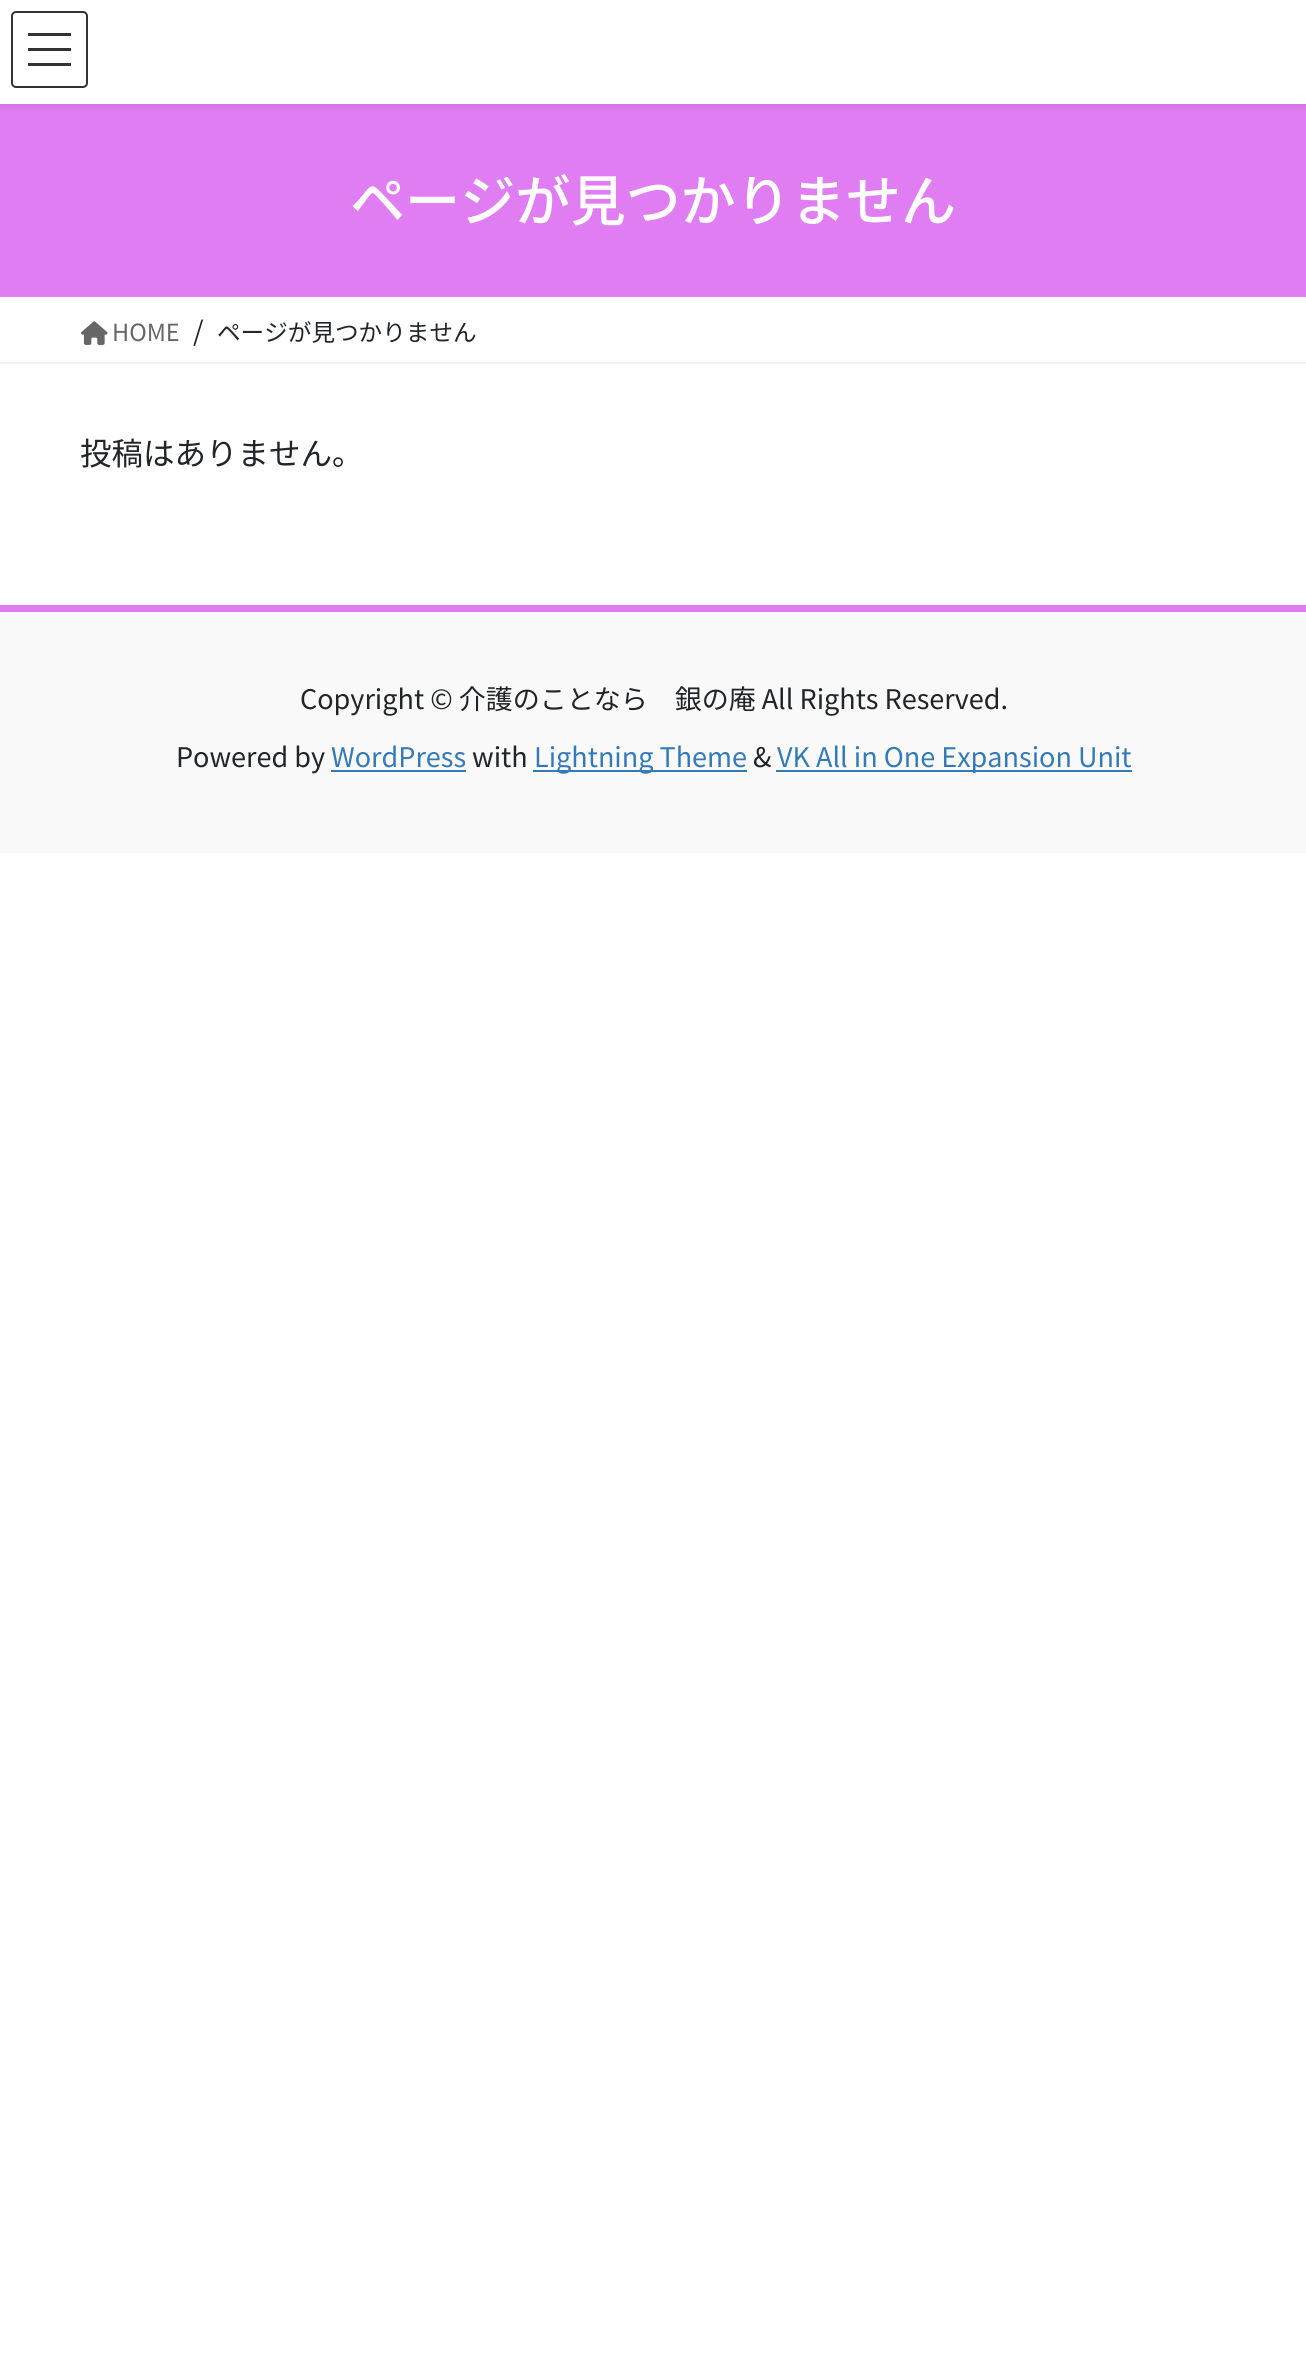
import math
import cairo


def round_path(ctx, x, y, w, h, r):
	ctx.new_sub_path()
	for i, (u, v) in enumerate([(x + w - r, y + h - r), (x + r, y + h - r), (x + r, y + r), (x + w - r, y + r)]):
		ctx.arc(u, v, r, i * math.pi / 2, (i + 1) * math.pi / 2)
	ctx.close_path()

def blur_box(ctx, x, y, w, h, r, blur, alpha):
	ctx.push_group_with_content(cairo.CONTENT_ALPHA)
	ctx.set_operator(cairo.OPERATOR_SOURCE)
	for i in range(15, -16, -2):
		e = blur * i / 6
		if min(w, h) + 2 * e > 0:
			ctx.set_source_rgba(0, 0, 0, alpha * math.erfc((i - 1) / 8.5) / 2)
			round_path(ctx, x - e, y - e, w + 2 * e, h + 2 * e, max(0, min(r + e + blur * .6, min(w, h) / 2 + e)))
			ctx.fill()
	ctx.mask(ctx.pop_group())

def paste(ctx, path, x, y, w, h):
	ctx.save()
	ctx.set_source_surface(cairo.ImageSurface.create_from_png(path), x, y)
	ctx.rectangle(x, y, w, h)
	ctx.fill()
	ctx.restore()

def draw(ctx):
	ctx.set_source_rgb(1, 1, 1)
	ctx.paint()
	ctx.set_source_rgb(0.878, 0.49, 0.949)
	ctx.rectangle(0, 104, 1306, 193)
	ctx.fill()
	ctx.set_source_rgb(0, 0, 0)
	blur_box(ctx, 0, 2, 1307, 104, 0, 3.5, 0.1)
	ctx.set_source_rgb(1, 1, 1)
	ctx.rectangle(0, 0, 1306, 104)
	ctx.fill()
	ctx.set_source_rgb(0.2, 0.2, 0.2)
	ctx.rectangle(28, 33, 43, 3)
	ctx.rectangle(28, 48, 43, 3)
	ctx.rectangle(28, 63, 43, 3)
	ctx.fill()
	round_path(ctx, 12, 12, 75, 75, 4)
	ctx.stroke()
	ctx.select_font_face('Noto Sans JP Medium')
	ctx.set_font_size(55.1)
	ctx.set_source_rgb(1, 1, 1)
	ctx.move_to(350, 221)
	ctx.show_text('ページが見つかりません')
	ctx.set_source_rgb(0.949, 0.949, 0.949)
	ctx.rectangle(0, 362, 1306, 2)
	ctx.fill()
	paste(ctx, 'media/1.png', 81, 321, 27, 24)
	ctx.select_font_face('Noto Sans JP')
	ctx.set_font_size(23.6)
	ctx.set_source_rgb(0.4, 0.4, 0.4)
	ctx.move_to(112, 341)
	ctx.show_text('HOME')
	ctx.set_font_size(27)
	ctx.set_source_rgb(0.129, 0.145, 0.161)
	ctx.move_to(193, 341)
	ctx.show_text('/')
	ctx.set_font_size(23.6)
	ctx.move_to(217, 341)
	ctx.show_text('ページが見つかりません')
	ctx.set_font_size(31.5)
	ctx.move_to(80, 465)
	ctx.show_text('投稿はありません。')
	ctx.set_source_rgb(0.976, 0.976, 0.976)
	ctx.rectangle(0, 612, 1306, 241)
	ctx.fill()
	ctx.set_source_rgb(0.878, 0.49, 0.949)
	ctx.rectangle(0, 605, 1306, 7)
	ctx.fill()
	ctx.set_font_size(27)
	ctx.set_source_rgb(0.129, 0.145, 0.161)
	ctx.move_to(300, 709)
	ctx.show_text('Copyright © 介護のことなら　銀の庵 All Rights Reserved.')
	ctx.move_to(176, 767)
	ctx.show_text('Powered by')
	ctx.set_source_rgb(0.2, 0.478, 0.718)
	ctx.move_to(331, 767)
	ctx.show_text('WordPress')
	ctx.rectangle(331, 770, 135, 2)
	ctx.fill()
	ctx.set_source_rgb(0.129, 0.145, 0.161)
	ctx.move_to(472, 767)
	ctx.show_text('with')
	ctx.set_source_rgb(0.2, 0.478, 0.718)
	ctx.rectangle(533, 770, 214, 2)
	ctx.fill()
	ctx.move_to(534, 767)
	ctx.show_text('Lightning Theme')
	ctx.set_source_rgb(0.129, 0.145, 0.161)
	ctx.move_to(753, 767)
	ctx.show_text('&')
	ctx.set_source_rgb(0.2, 0.478, 0.718)
	ctx.rectangle(776, 770, 356, 2)
	ctx.fill()
	ctx.move_to(777, 767)
	ctx.show_text('VK All in One Expansion Unit')


surface = cairo.ImageSurface(cairo.FORMAT_RGB24, 1306, 2358)
ctx = cairo.Context(surface)
options = cairo.FontOptions()
options.set_hint_metrics(cairo.HINT_METRICS_OFF)
options.set_hint_style(cairo.HINT_STYLE_NONE)
ctx.set_font_options(options)
ctx.set_miter_limit(4)
draw(ctx)
surface.write_to_png('image.png')
